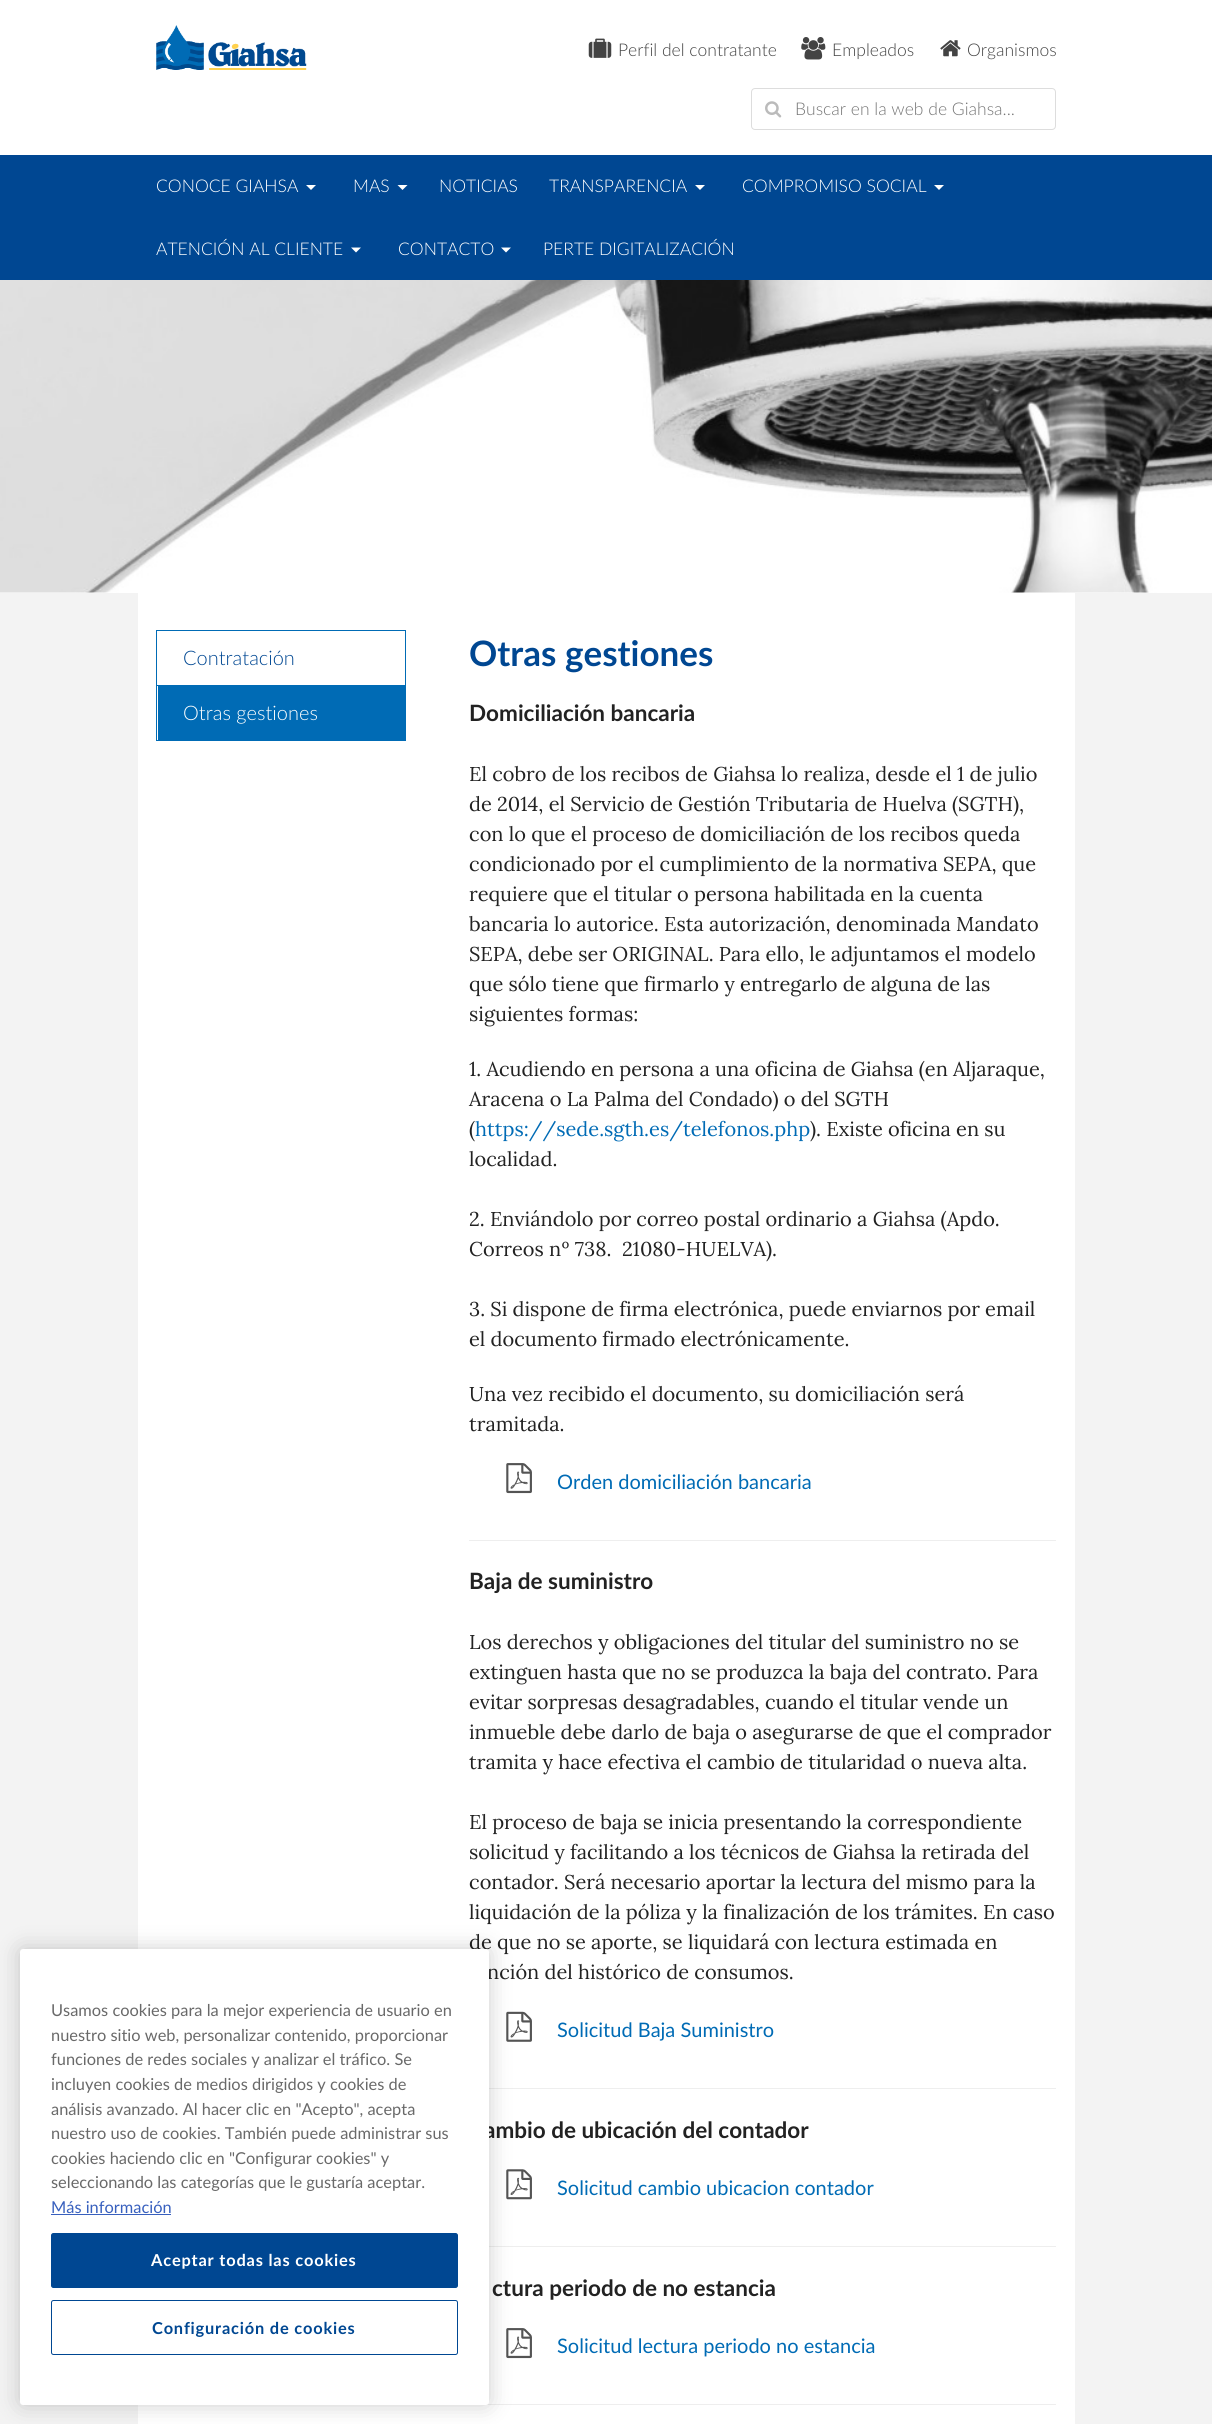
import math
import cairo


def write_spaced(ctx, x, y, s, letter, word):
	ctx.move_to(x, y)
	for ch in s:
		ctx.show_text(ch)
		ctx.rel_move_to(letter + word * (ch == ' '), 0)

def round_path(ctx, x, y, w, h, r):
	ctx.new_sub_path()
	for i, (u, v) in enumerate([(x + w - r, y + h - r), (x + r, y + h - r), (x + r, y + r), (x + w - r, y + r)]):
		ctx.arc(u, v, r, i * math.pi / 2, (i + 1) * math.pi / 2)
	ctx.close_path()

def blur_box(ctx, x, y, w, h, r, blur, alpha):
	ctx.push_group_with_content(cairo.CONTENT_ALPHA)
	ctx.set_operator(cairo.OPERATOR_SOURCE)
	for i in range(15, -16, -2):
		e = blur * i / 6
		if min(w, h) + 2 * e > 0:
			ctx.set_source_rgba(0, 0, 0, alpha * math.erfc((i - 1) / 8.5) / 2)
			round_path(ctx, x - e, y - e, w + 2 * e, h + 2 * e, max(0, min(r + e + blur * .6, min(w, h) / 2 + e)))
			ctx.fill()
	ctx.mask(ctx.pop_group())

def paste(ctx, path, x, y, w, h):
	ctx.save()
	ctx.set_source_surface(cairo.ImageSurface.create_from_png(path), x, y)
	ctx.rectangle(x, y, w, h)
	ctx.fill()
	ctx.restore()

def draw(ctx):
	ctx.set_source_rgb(1, 1, 1)
	ctx.paint()
	paste(ctx, 'media/1.png', 156, 25, 151, 45)
	paste(ctx, 'media/2.png', 588, 38, 24, 20)
	ctx.select_font_face('Lato Light')
	ctx.set_font_size(17.5)
	ctx.set_source_rgb(0.263, 0.263, 0.263)
	ctx.move_to(618, 56)
	ctx.show_text('Perfil del contratante')
	paste(ctx, 'media/3.png', 801, 37, 25, 23)
	ctx.move_to(832, 56)
	ctx.show_text('Empleados')
	paste(ctx, 'media/4.png', 940, 40, 21, 17)
	ctx.move_to(967, 56)
	ctx.show_text('Organismos')
	round_path(ctx, 751.5, 88.5, 304, 41, 3.5)
	ctx.set_source_rgb(0.867, 0.867, 0.867)
	ctx.set_line_width(1)
	ctx.stroke()
	paste(ctx, 'media/5.png', 765, 101, 17, 17)
	ctx.set_source_rgb(0.459, 0.459, 0.459)
	ctx.move_to(795, 115)
	ctx.show_text('Buscar en la web de Giahsa...')
	ctx.set_source_rgb(0, 0.278, 0.573)
	ctx.rectangle(0, 155, 1212, 125)
	ctx.fill()
	ctx.set_source_rgb(1, 1, 1)
	ctx.move_to(156, 192)
	ctx.show_text('CONOCE GIAHSA')
	ctx.new_path()
	ctx.move_to(306, 185)
	ctx.line_to(316, 185)
	ctx.line_to(311, 190)
	ctx.close_path()
	ctx.fill()
	ctx.move_to(353, 192)
	ctx.show_text('MAS')
	ctx.new_path()
	ctx.move_to(397.5, 185)
	ctx.line_to(407.5, 185)
	ctx.line_to(402.5, 190)
	ctx.close_path()
	ctx.fill()
	ctx.move_to(439, 192)
	ctx.show_text('NOTICIAS')
	ctx.move_to(549, 192)
	ctx.show_text('TRANSPARENCIA')
	ctx.new_path()
	ctx.move_to(695, 185)
	ctx.line_to(705, 185)
	ctx.line_to(700, 190)
	ctx.close_path()
	ctx.fill()
	ctx.move_to(742, 192)
	ctx.show_text('COMPROMISO SOCIAL')
	ctx.new_path()
	ctx.move_to(934, 185)
	ctx.line_to(944, 185)
	ctx.line_to(939, 190)
	ctx.close_path()
	ctx.fill()
	ctx.move_to(156, 255)
	ctx.show_text('ATENCIÓN AL CLIENTE')
	ctx.new_path()
	ctx.move_to(351, 247.5)
	ctx.line_to(361, 247.5)
	ctx.line_to(356, 252.5)
	ctx.close_path()
	ctx.fill()
	ctx.move_to(398, 255)
	ctx.show_text('CONTACTO')
	ctx.new_path()
	ctx.move_to(501, 247.5)
	ctx.line_to(511, 247.5)
	ctx.line_to(506, 252.5)
	ctx.close_path()
	ctx.fill()
	ctx.move_to(543, 255)
	ctx.show_text('PERTE DIGITALIZACIÓN')
	paste(ctx, 'media/6.png', 0, 280, 1212, 313)
	ctx.set_source_rgb(0.953, 0.953, 0.953)
	ctx.rectangle(0, 593, 1212, 1831)
	ctx.fill()
	ctx.set_source_rgb(1, 1, 1)
	ctx.rectangle(138, 593, 937, 1831)
	ctx.fill()
	ctx.set_source_rgb(0, 0.42, 0.71)
	ctx.rectangle(156, 630, 250, 1)
	ctx.rectangle(405, 630, 1, 55)
	ctx.rectangle(156, 630, 1, 55)
	ctx.fill()
	ctx.set_font_size(20)
	ctx.set_source_rgb(0, 0.278, 0.573)
	ctx.move_to(183, 665)
	ctx.show_text('Contratación')
	ctx.rectangle(156.5, 685.5, 249, 55)
	ctx.set_source_rgb(0, 0.42, 0.71)
	ctx.stroke()
	ctx.rectangle(158, 686, 247, 54)
	ctx.fill()
	ctx.set_source_rgb(1, 1, 1)
	ctx.move_to(183, 720)
	ctx.show_text('Otras gestiones')
	ctx.select_font_face('Lato', cairo.FONT_SLANT_NORMAL, cairo.FONT_WEIGHT_BOLD)
	ctx.set_font_size(35)
	ctx.set_source_rgb(0, 0.278, 0.573)
	ctx.move_to(469, 666)
	ctx.show_text('Otras gestiones')
	ctx.set_font_size(22.5)
	ctx.set_source_rgb(0.133, 0.133, 0.133)
	ctx.move_to(469, 721)
	ctx.show_text('Domiciliación bancaria')
	ctx.select_font_face('Lora')
	ctx.set_font_size(20)
	for x, y, s in [
		(469, 781, 'El cobro de los recibos de Giahsa lo realiza, desde el 1 de julio'),
		(469, 811, 'de 2014, el Servicio de Gestión Tributaria de Huelva (SGTH),'),
		(469, 841, 'con lo que el proceso de domiciliación de los recibos queda'),
		(469, 871, 'condicionado por el cumplimiento de la normativa SEPA, que'),
		(469, 901, 'requiere que el titular o persona habilitada en la cuenta'),
		(469, 931, 'bancaria lo autorice. Esta autorización, denominada Mandato'),
		(469, 961, 'SEPA, debe ser ORIGINAL. Para ello, le adjuntamos el modelo'),
		(469, 991, 'que sólo tiene que firmarlo y entregarlo de alguna de las'),
		(469, 1021, 'siguientes formas:'),
		(469, 1076, '1. Acudiendo en persona a una oficina de Giahsa (en Aljaraque,'),
		(469, 1106, 'Aracena o La Palma del Condado) o del SGTH'),
		(469, 1136, '('),
	]:
		ctx.move_to(x, y)
		ctx.show_text(s)
	ctx.set_source_rgb(0, 0.42, 0.71)
	ctx.move_to(475, 1136)
	ctx.show_text('https://sede.sgth.es/telefonos.php')
	ctx.set_source_rgb(0.133, 0.133, 0.133)
	for x, y, s in [
		(810, 1136, '). Existe oficina en su'),
		(469, 1166, 'localidad.'),
		(469, 1226, '2. Enviándolo por correo postal ordinario a Giahsa (Apdo.'),
		(469, 1256, 'Correos nº 738.  21080-HUELVA).'),
		(469, 1316, '3. Si dispone de firma electrónica, puede enviarnos por email'),
		(469, 1346, 'el documento firmado electrónicamente.'),
		(469, 1401, 'Una vez recibido el documento, su domiciliación será'),
		(469, 1431, 'tramitada.'),
	]:
		ctx.move_to(x, y)
		ctx.show_text(s)
	paste(ctx, 'media/7.png', 506, 1463, 26, 31)
	ctx.select_font_face('Lato')
	ctx.set_source_rgb(0, 0.42, 0.71)
	ctx.move_to(557, 1489)
	ctx.show_text('Orden domiciliación bancaria')
	ctx.set_source_rgb(0.933, 0.933, 0.933)
	ctx.rectangle(469, 1540, 587, 1)
	ctx.fill()
	ctx.select_font_face('Lato', cairo.FONT_SLANT_NORMAL, cairo.FONT_WEIGHT_BOLD)
	ctx.set_font_size(22.5)
	ctx.set_source_rgb(0.133, 0.133, 0.133)
	ctx.move_to(469, 1589)
	ctx.show_text('Baja de suministro')
	ctx.select_font_face('Lora')
	ctx.set_font_size(20)
	for x, y, s in [
		(469, 1649, 'Los derechos y obligaciones del titular del suministro no se'),
		(469, 1679, 'extinguen hasta que no se produzca la baja del contrato. Para'),
		(469, 1709, 'evitar sorpresas desagradables, cuando el titular vende un'),
		(469, 1739, 'inmueble debe darlo de baja o asegurarse de que el comprador'),
		(469, 1769, 'tramita y hace efectiva el cambio de titularidad o nueva alta.'),
		(469, 1829, 'El proceso de baja se inicia presentando la correspondiente'),
		(469, 1859, 'solicitud y facilitando a los técnicos de Giahsa la retirada del'),
		(469, 1889, 'contador. Será necesario aportar la lectura del mismo para la'),
		(469, 1919, 'liquidación de la póliza y la finalización de los trámites. En caso'),
		(469, 1949, 'de que no se aporte, se liquidará con lectura estimada en'),
		(487, 1979, 'nción del histórico de consumos.'),
	]:
		ctx.move_to(x, y)
		ctx.show_text(s)
	paste(ctx, 'media/8.png', 506, 2011, 26, 31)
	ctx.select_font_face('Lato')
	ctx.set_source_rgb(0, 0.42, 0.71)
	ctx.move_to(557, 2037)
	ctx.show_text('Solicitud Baja Suministro')
	ctx.set_source_rgb(0.933, 0.933, 0.933)
	ctx.rectangle(489, 2088, 567, 1)
	ctx.fill()
	ctx.select_font_face('Lato', cairo.FONT_SLANT_NORMAL, cairo.FONT_WEIGHT_BOLD)
	ctx.set_font_size(22.5)
	ctx.set_source_rgb(0.133, 0.133, 0.133)
	ctx.move_to(484, 2138)
	ctx.show_text('ambio de ubicación del contador')
	paste(ctx, 'media/9.png', 506, 2169, 26, 31)
	ctx.select_font_face('Lato')
	ctx.set_font_size(20)
	ctx.set_source_rgb(0, 0.42, 0.71)
	ctx.move_to(557, 2195)
	ctx.show_text('Solicitud cambio ubicacion contador')
	ctx.set_source_rgb(0.933, 0.933, 0.933)
	ctx.rectangle(489, 2246, 567, 1)
	ctx.fill()
	ctx.select_font_face('Lato', cairo.FONT_SLANT_NORMAL, cairo.FONT_WEIGHT_BOLD)
	ctx.set_font_size(22.5)
	ctx.set_source_rgb(0.133, 0.133, 0.133)
	ctx.move_to(492, 2296)
	ctx.show_text('ctura periodo de no estancia')
	paste(ctx, 'media/7.png', 506, 2328, 26, 31)
	ctx.select_font_face('Lato')
	ctx.set_font_size(20)
	ctx.set_source_rgb(0, 0.42, 0.71)
	ctx.move_to(557, 2353)
	ctx.show_text('Solicitud lectura periodo no estancia')
	ctx.set_source_rgb(0.933, 0.933, 0.933)
	ctx.rectangle(486, 2404, 570, 1)
	ctx.fill()
	ctx.set_source_rgb(0, 0, 0)
	blur_box(ctx, 20, 1949, 469, 456, 3, 11, 0.2)
	ctx.set_source_rgb(1, 1, 1)
	round_path(ctx, 20, 1949, 469, 456, 3)
	ctx.fill()
	ctx.set_font_size(16.4)
	ctx.set_source_rgb(0.412, 0.412, 0.412)
	for x, y, s in [
		(51, 2016, 'Usamos cookies para la mejor experiencia de usuario en'),
		(51, 2041, 'nuestro sitio web, personalizar contenido, proporcionar'),
		(51, 2065, 'funciones de redes sociales y analizar el tráfico. Se'),
		(51, 2090, 'incluyen cookies de medios dirigidos y cookies de'),
		(51, 2115, 'análisis avanzado. Al hacer clic en "Acepto", acepta'),
		(51, 2139, 'nuestro uso de cookies. También puede administrar sus'),
		(51, 2164, 'cookies haciendo clic en "Configurar cookies" y'),
		(51, 2188, 'seleccionando las categorías que le gustaría aceptar.'),
	]:
		ctx.move_to(x, y)
		ctx.show_text(s)
	ctx.set_source_rgb(0.22, 0.376, 0.745)
	ctx.move_to(51, 2213)
	ctx.show_text('Más información')
	ctx.rectangle(51, 2214, 120, 1)
	ctx.fill()
	ctx.set_source_rgb(0, 0.278, 0.573)
	round_path(ctx, 51.5, 2233.5, 406, 54, 2)
	ctx.fill_preserve()
	ctx.stroke()
	ctx.select_font_face('Lato', cairo.FONT_SLANT_NORMAL, cairo.FONT_WEIGHT_BOLD)
	ctx.set_source_rgb(1, 1, 1)
	write_spaced(ctx, 151, 2266, 'Aceptar todas las cookies', 0.8, 0)
	round_path(ctx, 51.5, 2300.5, 406, 54, 2)
	ctx.set_source_rgb(0, 0.278, 0.573)
	ctx.stroke()
	write_spaced(ctx, 152, 2334, 'Configuración de cookies', 0.8, 0)


surface = cairo.ImageSurface(cairo.FORMAT_RGB24, 1212, 2424)
ctx = cairo.Context(surface)
options = cairo.FontOptions()
options.set_hint_metrics(cairo.HINT_METRICS_OFF)
options.set_hint_style(cairo.HINT_STYLE_NONE)
ctx.set_font_options(options)
ctx.set_miter_limit(4)
draw(ctx)
surface.write_to_png('image.png')
